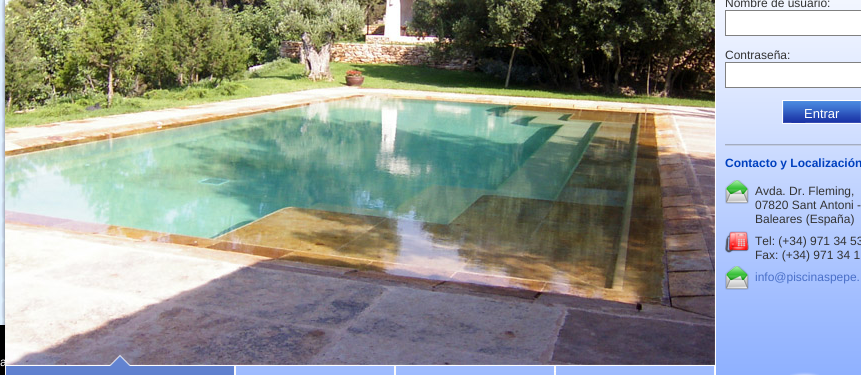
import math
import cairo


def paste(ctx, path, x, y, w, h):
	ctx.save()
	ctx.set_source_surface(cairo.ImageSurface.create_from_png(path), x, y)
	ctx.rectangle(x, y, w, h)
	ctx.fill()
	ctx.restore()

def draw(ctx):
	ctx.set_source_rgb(1, 1, 1)
	ctx.paint()
	paste(ctx, 'media/1.png', 0, 0, 5, 325)
	paste(ctx, 'media/2.png', 2, 0, 3, 325)
	ctx.set_source_rgb(0, 0, 0)
	ctx.rectangle(0, 325, 715, 50)
	ctx.fill()
	ctx.select_font_face('Liberation Sans')
	ctx.set_font_size(12)
	ctx.set_source_rgb(1, 1, 1)
	ctx.move_to(0, 366)
	ctx.show_text('a')
	ctx.rectangle(488.5, 351.5, 189, 20)
	ctx.set_line_width(1)
	ctx.stroke()
	paste(ctx, 'media/3.png', 5, 0, 710, 365)
	paste(ctx, 'media/4.png', 5, 355, 230, 20)
	paste(ctx, 'media/5.png', 235, 365, 160, 10)
	paste(ctx, 'media/6.png', 395, 365, 160, 10)
	paste(ctx, 'media/7.png', 555, 365, 160, 10)
	paste(ctx, 'media/8.png', 715, 0, 146, 375)
	paste(ctx, 'media/9.png', 725, 144, 136, 2)
	ctx.set_source_rgb(0.2, 0.2, 0.2)
	ctx.move_to(725, 7)
	ctx.show_text('Nombre de usuario:')
	ctx.set_source_rgb(1, 1, 1)
	ctx.rectangle(725.5, 10.5, 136, 25)
	ctx.fill_preserve()
	ctx.set_source_rgb(0.502, 0.502, 0.502)
	ctx.stroke()
	ctx.set_source_rgb(0.2, 0.2, 0.2)
	ctx.move_to(725, 59)
	ctx.show_text('Contraseña:')
	ctx.set_source_rgb(1, 1, 1)
	ctx.rectangle(725.5, 62.5, 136, 25)
	ctx.fill_preserve()
	ctx.set_source_rgb(0.502, 0.502, 0.502)
	ctx.stroke()
	paste(ctx, 'media/10.png', 782, 100, 79, 24)
	ctx.set_font_size(13)
	ctx.set_source_rgb(1, 1, 1)
	ctx.move_to(804, 118)
	ctx.show_text('Entrar')
	ctx.select_font_face('Liberation Sans', cairo.FONT_SLANT_NORMAL, cairo.FONT_WEIGHT_BOLD)
	ctx.set_font_size(12)
	ctx.set_source_rgb(0, 0.251, 0.749)
	ctx.move_to(725, 167)
	ctx.show_text('Contacto y Localización')
	paste(ctx, 'media/11.png', 725, 180, 24, 24)
	ctx.select_font_face('Liberation Sans')
	ctx.set_source_rgb(0.2, 0.2, 0.2)
	for x, y, s in [
		(755, 195, 'Avda. Dr. Fleming,'),
		(755, 209, '07820 Sant Antoni -'),
		(755, 223, 'Baleares (España)'),
	]:
		ctx.move_to(x, y)
		ctx.show_text(s)
	paste(ctx, 'media/12.png', 725, 231, 24, 22)
	ctx.move_to(755, 245)
	ctx.show_text('Tel: (+34) 971 34 53')
	ctx.move_to(755, 259)
	ctx.show_text('Fax: (+34) 971 34 1')
	paste(ctx, 'media/13.png', 725, 266, 24, 24)
	ctx.set_source_rgb(0.286, 0.435, 0.784)
	ctx.move_to(755, 281)
	ctx.show_text('info@piscinaspepe.')
	paste(ctx, 'media/14.png', 790, 372, 29, 3)


surface = cairo.ImageSurface(cairo.FORMAT_RGB24, 861, 375)
ctx = cairo.Context(surface)
options = cairo.FontOptions()
options.set_hint_metrics(cairo.HINT_METRICS_OFF)
options.set_hint_style(cairo.HINT_STYLE_NONE)
ctx.set_font_options(options)
ctx.set_miter_limit(4)
draw(ctx)
surface.write_to_png('image.png')
